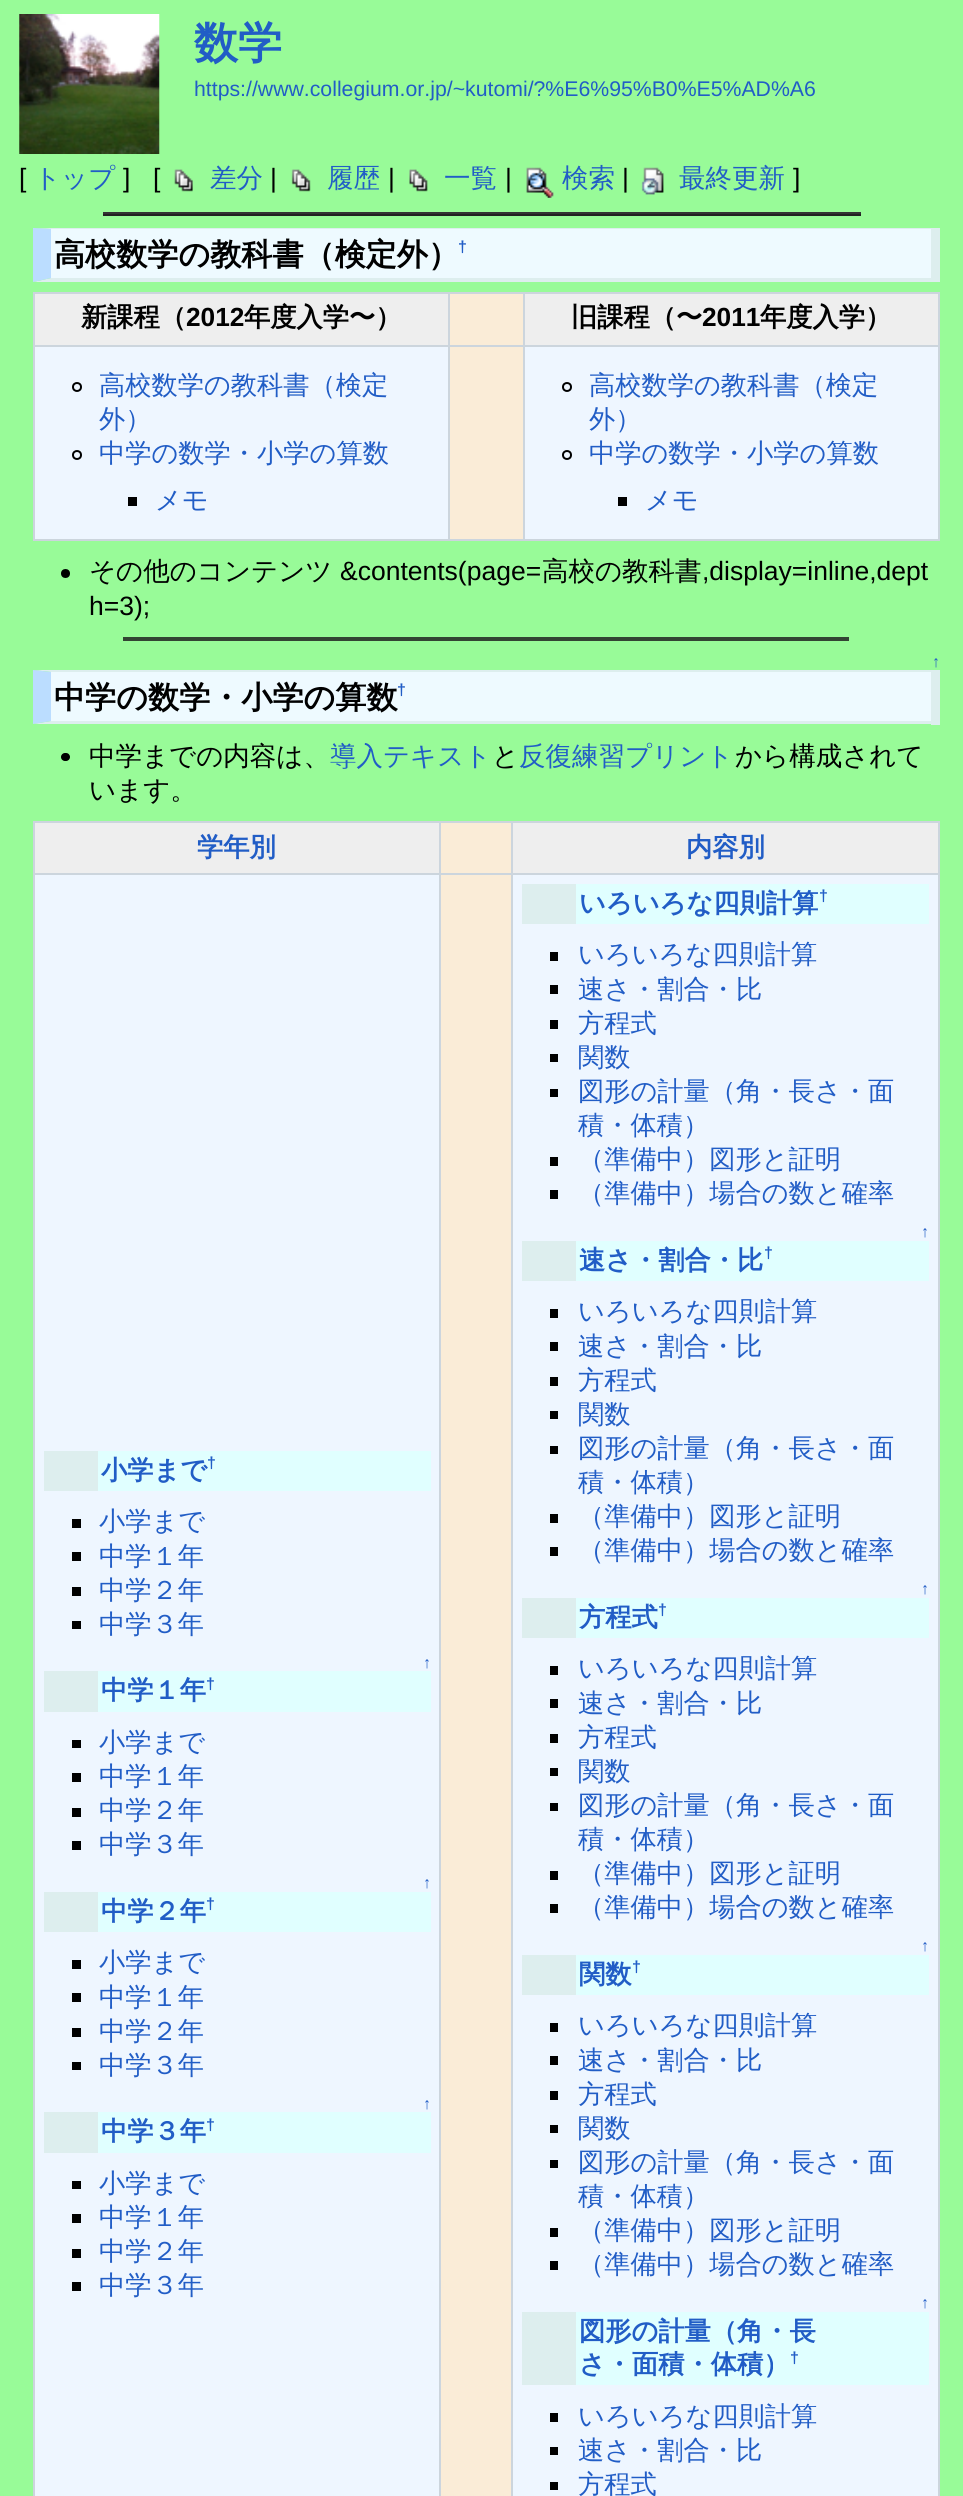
import math
import cairo


def round_path(ctx, x, y, w, h, r):
	ctx.new_sub_path()
	for i, (u, v) in enumerate([(x + w - r, y + h - r), (x + r, y + h - r), (x + r, y + r), (x + w - r, y + r)]):
		ctx.arc(u, v, r, i * math.pi / 2, (i + 1) * math.pi / 2)
	ctx.close_path()

def paste(ctx, path, x, y, w, h):
	ctx.save()
	ctx.set_source_surface(cairo.ImageSurface.create_from_png(path), x, y)
	ctx.rectangle(x, y, w, h)
	ctx.fill()
	ctx.restore()

def draw(ctx):
	ctx.set_source_rgb(0.596, 0.984, 0.596)
	ctx.paint()
	paste(ctx, 'media/1.png', 19, 14, 141, 140)
	ctx.select_font_face('WenQuanYi Zen Hei', cairo.FONT_SLANT_NORMAL, cairo.FONT_WEIGHT_BOLD)
	ctx.set_font_size(44)
	ctx.set_source_rgb(0.129, 0.365, 0.776)
	ctx.move_to(194, 58)
	ctx.show_text('数学')
	ctx.select_font_face('Liberation Sans')
	ctx.set_font_size(21.25)
	ctx.move_to(194, 96)
	ctx.show_text('https://www.collegium.or.jp/~kutomi/?%E6%95%B0%E5%AD%A6')
	ctx.set_font_size(26.5)
	ctx.set_source_rgb(0, 0, 0)
	ctx.move_to(19, 187)
	ctx.show_text('[')
	ctx.select_font_face('WenQuanYi Zen Hei Medium')
	ctx.set_source_rgb(0.129, 0.365, 0.776)
	ctx.move_to(34, 187)
	ctx.show_text('トップ')
	ctx.select_font_face('Liberation Sans')
	ctx.set_source_rgb(0, 0, 0)
	ctx.move_to(123, 187)
	ctx.show_text(']')
	ctx.move_to(153, 187)
	ctx.show_text('[')
	paste(ctx, 'media/2.png', 174, 169, 19, 23)
	ctx.select_font_face('WenQuanYi Zen Hei Medium')
	ctx.set_source_rgb(0.129, 0.365, 0.776)
	ctx.move_to(210, 187)
	ctx.show_text('差分')
	ctx.select_font_face('Liberation Sans')
	ctx.set_source_rgb(0, 0, 0)
	ctx.move_to(270, 187)
	ctx.show_text('|')
	paste(ctx, 'media/3.png', 291, 169, 20, 23)
	ctx.select_font_face('WenQuanYi Zen Hei Medium')
	ctx.set_source_rgb(0.129, 0.365, 0.776)
	ctx.move_to(327, 187)
	ctx.show_text('履歴')
	ctx.select_font_face('Liberation Sans')
	ctx.set_source_rgb(0, 0, 0)
	ctx.move_to(388, 187)
	ctx.show_text('|')
	paste(ctx, 'media/4.png', 409, 169, 19, 23)
	ctx.select_font_face('WenQuanYi Zen Hei Medium')
	ctx.set_source_rgb(0.129, 0.365, 0.776)
	ctx.move_to(444, 187)
	ctx.show_text('一覧')
	ctx.select_font_face('Liberation Sans')
	ctx.set_source_rgb(0, 0, 0)
	ctx.move_to(505, 187)
	ctx.show_text('|')
	paste(ctx, 'media/5.png', 526, 167, 28, 31)
	ctx.select_font_face('WenQuanYi Zen Hei Medium')
	ctx.set_source_rgb(0.129, 0.365, 0.776)
	ctx.move_to(562, 187)
	ctx.show_text('検索')
	ctx.select_font_face('Liberation Sans')
	ctx.set_source_rgb(0, 0, 0)
	ctx.move_to(622, 187)
	ctx.show_text('|')
	paste(ctx, 'media/6.png', 641, 167, 23, 28)
	ctx.select_font_face('WenQuanYi Zen Hei Medium')
	ctx.set_source_rgb(0.129, 0.365, 0.776)
	ctx.move_to(679, 187)
	ctx.show_text('最終更新')
	ctx.select_font_face('Liberation Sans')
	ctx.set_source_rgb(0, 0, 0)
	ctx.move_to(793, 187)
	ctx.show_text(']')
	ctx.set_source_rgb(0.2, 0.2, 0.2)
	ctx.rectangle(103, 212, 758, 2)
	ctx.fill()
	ctx.set_source_rgb(0.133, 0.133, 0.133)
	ctx.rectangle(103, 214, 758, 2)
	ctx.fill()
	ctx.set_source_rgb(0.933, 0.98, 1)
	ctx.rectangle(51, 229, 880, 49)
	ctx.fill()
	ctx.set_source_rgb(0.867, 0.933, 0.933)
	ctx.new_path()
	ctx.move_to(33, 228)
	ctx.line_to(940, 228)
	ctx.line_to(931, 229)
	ctx.line_to(51, 229)
	ctx.close_path()
	ctx.fill()
	ctx.rectangle(931, 228, 9, 54)
	ctx.fill()
	ctx.new_path()
	ctx.move_to(940, 282)
	ctx.line_to(33, 282)
	ctx.line_to(51, 278)
	ctx.line_to(931, 278)
	ctx.close_path()
	ctx.fill()
	ctx.set_source_rgb(0.733, 0.867, 1)
	ctx.new_path()
	ctx.move_to(33, 282)
	ctx.line_to(33, 228)
	ctx.line_to(51, 229)
	ctx.line_to(51, 278)
	ctx.close_path()
	ctx.fill()
	ctx.select_font_face('WenQuanYi Zen Hei', cairo.FONT_SLANT_NORMAL, cairo.FONT_WEIGHT_BOLD)
	ctx.set_font_size(31.1)
	ctx.set_source_rgb(0, 0, 0)
	ctx.move_to(54, 265)
	ctx.show_text('高校数学の教科書（検定外）')
	ctx.select_font_face('Liberation Sans', cairo.FONT_SLANT_NORMAL, cairo.FONT_WEIGHT_BOLD)
	ctx.set_font_size(16)
	ctx.set_source_rgb(0.129, 0.365, 0.776)
	ctx.move_to(458, 252)
	ctx.show_text('†')
	ctx.set_source_rgb(0.8, 0.835, 0.867)
	ctx.rectangle(33, 292, 907, 249)
	ctx.fill()
	ctx.set_source_rgb(0.933, 0.933, 0.933)
	ctx.rectangle(35, 294, 413, 51)
	ctx.fill()
	ctx.select_font_face('WenQuanYi Zen Hei', cairo.FONT_SLANT_NORMAL, cairo.FONT_WEIGHT_BOLD)
	ctx.set_font_size(26.25)
	ctx.set_source_rgb(0, 0, 0)
	ctx.move_to(81, 326)
	ctx.show_text('新課程（')
	ctx.select_font_face('Liberation Sans', cairo.FONT_SLANT_NORMAL, cairo.FONT_WEIGHT_BOLD)
	ctx.move_to(186, 326)
	ctx.show_text('2012')
	ctx.select_font_face('WenQuanYi Zen Hei', cairo.FONT_SLANT_NORMAL, cairo.FONT_WEIGHT_BOLD)
	ctx.move_to(244, 326)
	ctx.show_text('年度入学〜）')
	ctx.set_source_rgb(0.98, 0.922, 0.843)
	ctx.rectangle(450, 294, 73, 51)
	ctx.fill()
	ctx.set_source_rgb(0.933, 0.933, 0.933)
	ctx.rectangle(525, 294, 413, 51)
	ctx.fill()
	ctx.set_source_rgb(0, 0, 0)
	ctx.move_to(571, 326)
	ctx.show_text('旧課程（〜')
	ctx.select_font_face('Liberation Sans', cairo.FONT_SLANT_NORMAL, cairo.FONT_WEIGHT_BOLD)
	ctx.move_to(702, 326)
	ctx.show_text('2011')
	ctx.select_font_face('WenQuanYi Zen Hei', cairo.FONT_SLANT_NORMAL, cairo.FONT_WEIGHT_BOLD)
	ctx.move_to(760, 326)
	ctx.show_text('年度入学）')
	ctx.set_source_rgb(0.933, 0.961, 1)
	ctx.rectangle(35, 347, 413, 192)
	ctx.fill()
	ctx.arc(77, 387, 4, 0, 2 * math.pi)
	ctx.set_source_rgb(0, 0, 0)
	ctx.stroke()
	ctx.select_font_face('WenQuanYi Zen Hei Medium')
	ctx.set_source_rgb(0.129, 0.365, 0.776)
	ctx.move_to(99, 394)
	ctx.show_text('高校数学の教科書（検定')
	ctx.move_to(99, 428)
	ctx.show_text('外）')
	ctx.new_path()
	ctx.arc(77, 455, 4, 0, 2 * math.pi)
	ctx.set_source_rgb(0, 0, 0)
	ctx.stroke()
	ctx.set_source_rgb(0.129, 0.365, 0.776)
	ctx.move_to(99, 462)
	ctx.show_text('中学の数学・小学の算数')
	ctx.set_source_rgb(0, 0, 0)
	ctx.rectangle(128, 497, 9, 9)
	ctx.fill()
	ctx.set_source_rgb(0.129, 0.365, 0.776)
	ctx.move_to(155, 509)
	ctx.show_text('メモ')
	ctx.set_source_rgb(0.98, 0.922, 0.843)
	ctx.rectangle(450, 347, 73, 192)
	ctx.fill()
	ctx.set_source_rgb(0.933, 0.961, 1)
	ctx.rectangle(525, 347, 413, 192)
	ctx.fill()
	ctx.arc(567, 387, 4, 0, 2 * math.pi)
	ctx.set_source_rgb(0, 0, 0)
	ctx.stroke()
	ctx.set_source_rgb(0.129, 0.365, 0.776)
	ctx.move_to(589, 394)
	ctx.show_text('高校数学の教科書（検定')
	ctx.move_to(589, 428)
	ctx.show_text('外）')
	ctx.new_path()
	ctx.arc(567, 455, 4, 0, 2 * math.pi)
	ctx.set_source_rgb(0, 0, 0)
	ctx.stroke()
	ctx.set_source_rgb(0.129, 0.365, 0.776)
	ctx.move_to(589, 462)
	ctx.show_text('中学の数学・小学の算数')
	ctx.set_source_rgb(0, 0, 0)
	ctx.rectangle(618, 497, 9, 9)
	ctx.fill()
	ctx.set_source_rgb(0.129, 0.365, 0.776)
	ctx.move_to(645, 509)
	ctx.show_text('メモ')
	ctx.set_source_rgb(0, 0, 0)
	ctx.new_path()
	ctx.arc(65.5, 573.5, 4.5, 0, 2 * math.pi)
	ctx.fill()
	ctx.set_font_size(26.5)
	ctx.move_to(89, 580)
	ctx.show_text('その他のコンテンツ')
	ctx.select_font_face('Liberation Sans')
	ctx.move_to(340, 580)
	ctx.show_text('&contents(page=')
	ctx.select_font_face('WenQuanYi Zen Hei Medium')
	ctx.move_to(542, 580)
	ctx.show_text('高校の教科書')
	ctx.select_font_face('Liberation Sans')
	ctx.move_to(702, 580)
	ctx.show_text(',display=inline,dept')
	ctx.move_to(89, 615)
	ctx.show_text('h=3);')
	ctx.set_source_rgb(0.2, 0.267, 0.2)
	ctx.rectangle(123, 637, 726, 4)
	ctx.fill()
	ctx.set_font_size(16)
	ctx.set_source_rgb(0.129, 0.365, 0.776)
	ctx.move_to(932, 667)
	ctx.show_text('↑')
	ctx.set_source_rgb(0.933, 0.98, 1)
	ctx.rectangle(51, 672, 880, 49)
	ctx.fill()
	ctx.set_source_rgb(0.867, 0.933, 0.933)
	ctx.new_path()
	ctx.move_to(33, 670)
	ctx.line_to(940, 670)
	ctx.line_to(931, 672)
	ctx.line_to(51, 672)
	ctx.close_path()
	ctx.fill()
	ctx.rectangle(931, 670, 9, 55)
	ctx.fill()
	ctx.new_path()
	ctx.move_to(940, 724)
	ctx.line_to(33, 724)
	ctx.line_to(51, 721)
	ctx.line_to(931, 721)
	ctx.close_path()
	ctx.fill()
	ctx.set_source_rgb(0.733, 0.867, 1)
	ctx.new_path()
	ctx.move_to(33, 724)
	ctx.line_to(33, 670)
	ctx.line_to(51, 672)
	ctx.line_to(51, 721)
	ctx.close_path()
	ctx.fill()
	ctx.select_font_face('WenQuanYi Zen Hei', cairo.FONT_SLANT_NORMAL, cairo.FONT_WEIGHT_BOLD)
	ctx.set_font_size(31.1)
	ctx.set_source_rgb(0, 0, 0)
	ctx.move_to(54, 708)
	ctx.show_text('中学の数学・小学の算数')
	ctx.select_font_face('Liberation Sans', cairo.FONT_SLANT_NORMAL, cairo.FONT_WEIGHT_BOLD)
	ctx.set_font_size(16)
	ctx.set_source_rgb(0.129, 0.365, 0.776)
	ctx.move_to(397, 695)
	ctx.show_text('†')
	ctx.set_source_rgb(0, 0, 0)
	round_path(ctx, 61, 753, 9, 8, 4)
	ctx.fill()
	ctx.select_font_face('WenQuanYi Zen Hei Medium')
	ctx.set_font_size(26.5)
	ctx.move_to(89, 765)
	ctx.show_text('中学までの内容は、')
	ctx.set_source_rgb(0.129, 0.365, 0.776)
	ctx.move_to(330, 765)
	ctx.show_text('導入テキスト')
	ctx.set_source_rgb(0, 0, 0)
	ctx.move_to(492, 765)
	ctx.show_text('と')
	ctx.set_source_rgb(0.129, 0.365, 0.776)
	ctx.move_to(519, 765)
	ctx.show_text('反復練習プリント')
	ctx.set_source_rgb(0, 0, 0)
	ctx.move_to(735, 765)
	ctx.show_text('から構成されて')
	ctx.move_to(89, 799)
	ctx.show_text('います。')
	ctx.set_source_rgb(0.8, 0.835, 0.867)
	ctx.rectangle(33, 821, 907, 1675)
	ctx.fill()
	ctx.set_source_rgb(0.933, 0.933, 0.933)
	ctx.rectangle(35, 823, 404, 50)
	ctx.fill()
	ctx.select_font_face('WenQuanYi Zen Hei', cairo.FONT_SLANT_NORMAL, cairo.FONT_WEIGHT_BOLD)
	ctx.set_font_size(26.25)
	ctx.set_source_rgb(0.129, 0.365, 0.776)
	ctx.move_to(197, 856)
	ctx.show_text('学年別')
	ctx.set_source_rgb(0.98, 0.922, 0.843)
	ctx.rectangle(441, 823, 70, 50)
	ctx.fill()
	ctx.set_source_rgb(0.933, 0.933, 0.933)
	ctx.rectangle(513, 823, 425, 50)
	ctx.fill()
	ctx.set_source_rgb(0.129, 0.365, 0.776)
	ctx.move_to(686, 856)
	ctx.show_text('内容別')
	ctx.set_source_rgb(0.933, 0.961, 1)
	ctx.rectangle(35, 875, 404, 1621)
	ctx.fill()
	ctx.set_source_rgb(0.878, 1, 1)
	ctx.rectangle(98, 1451, 333, 40)
	ctx.fill()
	ctx.set_source_rgb(0.867, 0.933, 0.933)
	ctx.rectangle(44, 1451, 54, 40)
	ctx.fill()
	ctx.set_source_rgb(0.129, 0.365, 0.776)
	ctx.move_to(101, 1479)
	ctx.show_text('小学まで')
	ctx.select_font_face('Liberation Sans', cairo.FONT_SLANT_NORMAL, cairo.FONT_WEIGHT_BOLD)
	ctx.set_font_size(16)
	ctx.move_to(207, 1468)
	ctx.show_text('†')
	ctx.set_source_rgb(0, 0, 0)
	ctx.rectangle(72, 1519, 9, 9)
	ctx.fill()
	ctx.select_font_face('WenQuanYi Zen Hei Medium')
	ctx.set_font_size(26.25)
	ctx.set_source_rgb(0.129, 0.365, 0.776)
	ctx.move_to(99, 1530)
	ctx.show_text('小学まで')
	ctx.set_source_rgb(0, 0, 0)
	ctx.rectangle(72, 1552, 9, 9)
	ctx.fill()
	ctx.set_source_rgb(0.129, 0.365, 0.776)
	ctx.move_to(99, 1565)
	ctx.show_text('中学１年')
	ctx.set_source_rgb(0, 0, 0)
	ctx.rectangle(72, 1587, 9, 9)
	ctx.fill()
	ctx.set_source_rgb(0.129, 0.365, 0.776)
	ctx.move_to(99, 1599)
	ctx.show_text('中学２年')
	ctx.set_source_rgb(0, 0, 0)
	ctx.rectangle(72, 1621, 9, 8)
	ctx.fill()
	ctx.set_source_rgb(0.129, 0.365, 0.776)
	ctx.move_to(99, 1633)
	ctx.show_text('中学３年')
	ctx.select_font_face('Liberation Sans')
	ctx.set_font_size(16)
	ctx.move_to(423, 1668)
	ctx.show_text('↑')
	ctx.set_source_rgb(0.878, 1, 1)
	ctx.rectangle(98, 1671, 333, 41)
	ctx.fill()
	ctx.set_source_rgb(0.867, 0.933, 0.933)
	ctx.rectangle(44, 1671, 54, 41)
	ctx.fill()
	ctx.select_font_face('WenQuanYi Zen Hei', cairo.FONT_SLANT_NORMAL, cairo.FONT_WEIGHT_BOLD)
	ctx.set_font_size(26.25)
	ctx.set_source_rgb(0.129, 0.365, 0.776)
	ctx.move_to(101, 1699)
	ctx.show_text('中学１年')
	ctx.select_font_face('Liberation Sans', cairo.FONT_SLANT_NORMAL, cairo.FONT_WEIGHT_BOLD)
	ctx.set_font_size(16)
	ctx.move_to(206, 1689)
	ctx.show_text('†')
	ctx.set_source_rgb(0, 0, 0)
	ctx.rectangle(72, 1740, 9, 8)
	ctx.fill()
	ctx.select_font_face('WenQuanYi Zen Hei Medium')
	ctx.set_font_size(26.25)
	ctx.set_source_rgb(0.129, 0.365, 0.776)
	ctx.move_to(99, 1751)
	ctx.show_text('小学まで')
	ctx.set_source_rgb(0, 0, 0)
	ctx.rectangle(72, 1773, 9, 9)
	ctx.fill()
	ctx.set_source_rgb(0.129, 0.365, 0.776)
	ctx.move_to(99, 1785)
	ctx.show_text('中学１年')
	ctx.set_source_rgb(0, 0, 0)
	ctx.rectangle(72, 1808, 9, 9)
	ctx.fill()
	ctx.set_source_rgb(0.129, 0.365, 0.776)
	ctx.move_to(99, 1819)
	ctx.show_text('中学２年')
	ctx.set_source_rgb(0, 0, 0)
	ctx.rectangle(72, 1841, 9, 9)
	ctx.fill()
	ctx.set_source_rgb(0.129, 0.365, 0.776)
	ctx.move_to(99, 1853)
	ctx.show_text('中学３年')
	ctx.select_font_face('Liberation Sans')
	ctx.set_font_size(16)
	ctx.move_to(423, 1888)
	ctx.show_text('↑')
	ctx.set_source_rgb(0.878, 1, 1)
	ctx.rectangle(98, 1892, 333, 40)
	ctx.fill()
	ctx.set_source_rgb(0.867, 0.933, 0.933)
	ctx.rectangle(44, 1892, 54, 40)
	ctx.fill()
	ctx.select_font_face('WenQuanYi Zen Hei', cairo.FONT_SLANT_NORMAL, cairo.FONT_WEIGHT_BOLD)
	ctx.set_font_size(26.25)
	ctx.set_source_rgb(0.129, 0.365, 0.776)
	ctx.move_to(101, 1920)
	ctx.show_text('中学２年')
	ctx.select_font_face('Liberation Sans', cairo.FONT_SLANT_NORMAL, cairo.FONT_WEIGHT_BOLD)
	ctx.set_font_size(16)
	ctx.move_to(206, 1909)
	ctx.show_text('†')
	ctx.set_source_rgb(0, 0, 0)
	ctx.rectangle(72, 1960, 9, 9)
	ctx.fill()
	ctx.select_font_face('WenQuanYi Zen Hei Medium')
	ctx.set_font_size(26.25)
	ctx.set_source_rgb(0.129, 0.365, 0.776)
	ctx.move_to(99, 1971)
	ctx.show_text('小学まで')
	ctx.set_source_rgb(0, 0, 0)
	ctx.rectangle(72, 1993, 9, 9)
	ctx.fill()
	ctx.set_source_rgb(0.129, 0.365, 0.776)
	ctx.move_to(99, 2006)
	ctx.show_text('中学１年')
	ctx.set_source_rgb(0, 0, 0)
	ctx.rectangle(72, 2028, 9, 9)
	ctx.fill()
	ctx.set_source_rgb(0.129, 0.365, 0.776)
	ctx.move_to(99, 2040)
	ctx.show_text('中学２年')
	ctx.set_source_rgb(0, 0, 0)
	ctx.rectangle(72, 2062, 9, 8)
	ctx.fill()
	ctx.set_source_rgb(0.129, 0.365, 0.776)
	ctx.move_to(99, 2074)
	ctx.show_text('中学３年')
	ctx.select_font_face('Liberation Sans')
	ctx.set_font_size(16)
	ctx.move_to(423, 2109)
	ctx.show_text('↑')
	ctx.set_source_rgb(0.878, 1, 1)
	ctx.rectangle(98, 2112, 333, 41)
	ctx.fill()
	ctx.set_source_rgb(0.867, 0.933, 0.933)
	ctx.rectangle(44, 2112, 54, 41)
	ctx.fill()
	ctx.select_font_face('WenQuanYi Zen Hei', cairo.FONT_SLANT_NORMAL, cairo.FONT_WEIGHT_BOLD)
	ctx.set_font_size(26.25)
	ctx.set_source_rgb(0.129, 0.365, 0.776)
	ctx.move_to(101, 2140)
	ctx.show_text('中学３年')
	ctx.select_font_face('Liberation Sans', cairo.FONT_SLANT_NORMAL, cairo.FONT_WEIGHT_BOLD)
	ctx.set_font_size(16)
	ctx.move_to(206, 2130)
	ctx.show_text('†')
	ctx.set_source_rgb(0, 0, 0)
	ctx.rectangle(72, 2181, 9, 8)
	ctx.fill()
	ctx.select_font_face('WenQuanYi Zen Hei Medium')
	ctx.set_font_size(26.25)
	ctx.set_source_rgb(0.129, 0.365, 0.776)
	ctx.move_to(99, 2192)
	ctx.show_text('小学まで')
	ctx.set_source_rgb(0, 0, 0)
	ctx.rectangle(72, 2214, 9, 9)
	ctx.fill()
	ctx.set_source_rgb(0.129, 0.365, 0.776)
	ctx.move_to(99, 2226)
	ctx.show_text('中学１年')
	ctx.set_source_rgb(0, 0, 0)
	ctx.rectangle(72, 2249, 9, 9)
	ctx.fill()
	ctx.set_source_rgb(0.129, 0.365, 0.776)
	ctx.move_to(99, 2260)
	ctx.show_text('中学２年')
	ctx.set_source_rgb(0, 0, 0)
	ctx.rectangle(72, 2282, 9, 9)
	ctx.fill()
	ctx.set_source_rgb(0.129, 0.365, 0.776)
	ctx.move_to(99, 2294)
	ctx.show_text('中学３年')
	ctx.set_source_rgb(0.98, 0.922, 0.843)
	ctx.rectangle(441, 875, 70, 1621)
	ctx.fill()
	ctx.set_source_rgb(0.933, 0.961, 1)
	ctx.rectangle(513, 875, 425, 1621)
	ctx.fill()
	ctx.set_source_rgb(0.878, 1, 1)
	ctx.rectangle(576, 884, 353, 40)
	ctx.fill()
	ctx.set_source_rgb(0.867, 0.933, 0.933)
	ctx.rectangle(522, 884, 54, 40)
	ctx.fill()
	ctx.select_font_face('WenQuanYi Zen Hei', cairo.FONT_SLANT_NORMAL, cairo.FONT_WEIGHT_BOLD)
	ctx.set_source_rgb(0.129, 0.365, 0.776)
	ctx.move_to(579, 912)
	ctx.show_text('いろいろな四則計算')
	ctx.select_font_face('Liberation Sans', cairo.FONT_SLANT_NORMAL, cairo.FONT_WEIGHT_BOLD)
	ctx.set_font_size(16)
	ctx.move_to(819, 901)
	ctx.show_text('†')
	ctx.set_source_rgb(0, 0, 0)
	ctx.rectangle(550, 952, 8, 9)
	ctx.fill()
	ctx.select_font_face('WenQuanYi Zen Hei Medium')
	ctx.set_font_size(26.25)
	ctx.set_source_rgb(0.129, 0.365, 0.776)
	ctx.move_to(578, 963)
	ctx.show_text('いろいろな四則計算')
	ctx.set_source_rgb(0, 0, 0)
	ctx.rectangle(550, 985, 8, 9)
	ctx.fill()
	ctx.set_source_rgb(0.129, 0.365, 0.776)
	ctx.move_to(578, 998)
	ctx.show_text('速さ・割合・比')
	ctx.set_source_rgb(0, 0, 0)
	ctx.rectangle(550, 1020, 8, 9)
	ctx.fill()
	ctx.set_source_rgb(0.129, 0.365, 0.776)
	ctx.move_to(578, 1032)
	ctx.show_text('方程式')
	ctx.set_source_rgb(0, 0, 0)
	ctx.rectangle(550, 1054, 8, 8)
	ctx.fill()
	ctx.set_source_rgb(0.129, 0.365, 0.776)
	ctx.move_to(578, 1066)
	ctx.show_text('関数')
	ctx.set_source_rgb(0, 0, 0)
	ctx.rectangle(550, 1089, 8, 8)
	ctx.fill()
	ctx.set_source_rgb(0.129, 0.365, 0.776)
	ctx.move_to(578, 1100)
	ctx.show_text('図形の計量（角・長さ・面')
	ctx.move_to(578, 1134)
	ctx.show_text('積・体積）')
	ctx.set_source_rgb(0, 0, 0)
	ctx.rectangle(550, 1157, 8, 9)
	ctx.fill()
	ctx.set_source_rgb(0.129, 0.365, 0.776)
	ctx.move_to(578, 1168)
	ctx.show_text('（準備中）図形と証明')
	ctx.set_source_rgb(0, 0, 0)
	ctx.rectangle(550, 1190, 8, 9)
	ctx.fill()
	ctx.set_source_rgb(0.129, 0.365, 0.776)
	ctx.move_to(578, 1202)
	ctx.show_text('（準備中）場合の数と確率')
	ctx.select_font_face('Liberation Sans')
	ctx.set_font_size(16)
	ctx.move_to(921, 1237)
	ctx.show_text('↑')
	ctx.set_source_rgb(0.878, 1, 1)
	ctx.rectangle(576, 1241, 353, 40)
	ctx.fill()
	ctx.set_source_rgb(0.867, 0.933, 0.933)
	ctx.rectangle(522, 1241, 54, 40)
	ctx.fill()
	ctx.select_font_face('WenQuanYi Zen Hei', cairo.FONT_SLANT_NORMAL, cairo.FONT_WEIGHT_BOLD)
	ctx.set_font_size(26.25)
	ctx.set_source_rgb(0.129, 0.365, 0.776)
	ctx.move_to(579, 1269)
	ctx.show_text('速さ・割合・比')
	ctx.select_font_face('Liberation Sans', cairo.FONT_SLANT_NORMAL, cairo.FONT_WEIGHT_BOLD)
	ctx.set_font_size(16)
	ctx.move_to(764, 1258)
	ctx.show_text('†')
	ctx.set_source_rgb(0, 0, 0)
	ctx.rectangle(550, 1309, 8, 9)
	ctx.fill()
	ctx.select_font_face('WenQuanYi Zen Hei Medium')
	ctx.set_font_size(26.25)
	ctx.set_source_rgb(0.129, 0.365, 0.776)
	ctx.move_to(578, 1320)
	ctx.show_text('いろいろな四則計算')
	ctx.set_source_rgb(0, 0, 0)
	ctx.rectangle(550, 1342, 8, 9)
	ctx.fill()
	ctx.set_source_rgb(0.129, 0.365, 0.776)
	ctx.move_to(578, 1355)
	ctx.show_text('速さ・割合・比')
	ctx.set_source_rgb(0, 0, 0)
	ctx.rectangle(550, 1377, 8, 9)
	ctx.fill()
	ctx.set_source_rgb(0.129, 0.365, 0.776)
	ctx.move_to(578, 1389)
	ctx.show_text('方程式')
	ctx.set_source_rgb(0, 0, 0)
	ctx.rectangle(550, 1411, 8, 8)
	ctx.fill()
	ctx.set_source_rgb(0.129, 0.365, 0.776)
	ctx.move_to(578, 1423)
	ctx.show_text('関数')
	ctx.set_source_rgb(0, 0, 0)
	ctx.rectangle(550, 1446, 8, 8)
	ctx.fill()
	ctx.set_source_rgb(0.129, 0.365, 0.776)
	ctx.move_to(578, 1457)
	ctx.show_text('図形の計量（角・長さ・面')
	ctx.move_to(578, 1491)
	ctx.show_text('積・体積）')
	ctx.set_source_rgb(0, 0, 0)
	ctx.rectangle(550, 1514, 8, 9)
	ctx.fill()
	ctx.set_source_rgb(0.129, 0.365, 0.776)
	ctx.move_to(578, 1525)
	ctx.show_text('（準備中）図形と証明')
	ctx.set_source_rgb(0, 0, 0)
	ctx.rectangle(550, 1547, 8, 9)
	ctx.fill()
	ctx.set_source_rgb(0.129, 0.365, 0.776)
	ctx.move_to(578, 1559)
	ctx.show_text('（準備中）場合の数と確率')
	ctx.select_font_face('Liberation Sans')
	ctx.set_font_size(16)
	ctx.move_to(921, 1594)
	ctx.show_text('↑')
	ctx.set_source_rgb(0.878, 1, 1)
	ctx.rectangle(576, 1598, 353, 40)
	ctx.fill()
	ctx.set_source_rgb(0.867, 0.933, 0.933)
	ctx.rectangle(522, 1598, 54, 40)
	ctx.fill()
	ctx.select_font_face('WenQuanYi Zen Hei', cairo.FONT_SLANT_NORMAL, cairo.FONT_WEIGHT_BOLD)
	ctx.set_font_size(26.25)
	ctx.set_source_rgb(0.129, 0.365, 0.776)
	ctx.move_to(579, 1626)
	ctx.show_text('方程式')
	ctx.select_font_face('Liberation Sans', cairo.FONT_SLANT_NORMAL, cairo.FONT_WEIGHT_BOLD)
	ctx.set_font_size(16)
	ctx.move_to(658, 1615)
	ctx.show_text('†')
	ctx.set_source_rgb(0, 0, 0)
	ctx.rectangle(550, 1666, 8, 9)
	ctx.fill()
	ctx.select_font_face('WenQuanYi Zen Hei Medium')
	ctx.set_font_size(26.25)
	ctx.set_source_rgb(0.129, 0.365, 0.776)
	ctx.move_to(578, 1677)
	ctx.show_text('いろいろな四則計算')
	ctx.set_source_rgb(0, 0, 0)
	ctx.rectangle(550, 1699, 8, 9)
	ctx.fill()
	ctx.set_source_rgb(0.129, 0.365, 0.776)
	ctx.move_to(578, 1712)
	ctx.show_text('速さ・割合・比')
	ctx.set_source_rgb(0, 0, 0)
	ctx.rectangle(550, 1734, 8, 9)
	ctx.fill()
	ctx.set_source_rgb(0.129, 0.365, 0.776)
	ctx.move_to(578, 1746)
	ctx.show_text('方程式')
	ctx.set_source_rgb(0, 0, 0)
	ctx.rectangle(550, 1768, 8, 8)
	ctx.fill()
	ctx.set_source_rgb(0.129, 0.365, 0.776)
	ctx.move_to(578, 1780)
	ctx.show_text('関数')
	ctx.set_source_rgb(0, 0, 0)
	ctx.rectangle(550, 1803, 8, 8)
	ctx.fill()
	ctx.set_source_rgb(0.129, 0.365, 0.776)
	ctx.move_to(578, 1814)
	ctx.show_text('図形の計量（角・長さ・面')
	ctx.move_to(578, 1848)
	ctx.show_text('積・体積）')
	ctx.set_source_rgb(0, 0, 0)
	ctx.rectangle(550, 1871, 8, 9)
	ctx.fill()
	ctx.set_source_rgb(0.129, 0.365, 0.776)
	ctx.move_to(578, 1882)
	ctx.show_text('（準備中）図形と証明')
	ctx.set_source_rgb(0, 0, 0)
	ctx.rectangle(550, 1904, 8, 9)
	ctx.fill()
	ctx.set_source_rgb(0.129, 0.365, 0.776)
	ctx.move_to(578, 1916)
	ctx.show_text('（準備中）場合の数と確率')
	ctx.select_font_face('Liberation Sans')
	ctx.set_font_size(16)
	ctx.move_to(921, 1951)
	ctx.show_text('↑')
	ctx.set_source_rgb(0.878, 1, 1)
	ctx.rectangle(576, 1955, 353, 40)
	ctx.fill()
	ctx.set_source_rgb(0.867, 0.933, 0.933)
	ctx.rectangle(522, 1955, 54, 40)
	ctx.fill()
	ctx.select_font_face('WenQuanYi Zen Hei', cairo.FONT_SLANT_NORMAL, cairo.FONT_WEIGHT_BOLD)
	ctx.set_font_size(26.25)
	ctx.set_source_rgb(0.129, 0.365, 0.776)
	ctx.move_to(579, 1983)
	ctx.show_text('関数')
	ctx.select_font_face('Liberation Sans', cairo.FONT_SLANT_NORMAL, cairo.FONT_WEIGHT_BOLD)
	ctx.set_font_size(16)
	ctx.move_to(632, 1972)
	ctx.show_text('†')
	ctx.set_source_rgb(0, 0, 0)
	ctx.rectangle(550, 2023, 8, 9)
	ctx.fill()
	ctx.select_font_face('WenQuanYi Zen Hei Medium')
	ctx.set_font_size(26.25)
	ctx.set_source_rgb(0.129, 0.365, 0.776)
	ctx.move_to(578, 2034)
	ctx.show_text('いろいろな四則計算')
	ctx.set_source_rgb(0, 0, 0)
	ctx.rectangle(550, 2056, 8, 9)
	ctx.fill()
	ctx.set_source_rgb(0.129, 0.365, 0.776)
	ctx.move_to(578, 2069)
	ctx.show_text('速さ・割合・比')
	ctx.set_source_rgb(0, 0, 0)
	ctx.rectangle(550, 2091, 8, 9)
	ctx.fill()
	ctx.set_source_rgb(0.129, 0.365, 0.776)
	ctx.move_to(578, 2103)
	ctx.show_text('方程式')
	ctx.set_source_rgb(0, 0, 0)
	ctx.rectangle(550, 2125, 8, 8)
	ctx.fill()
	ctx.set_source_rgb(0.129, 0.365, 0.776)
	ctx.move_to(578, 2137)
	ctx.show_text('関数')
	ctx.set_source_rgb(0, 0, 0)
	ctx.rectangle(550, 2160, 8, 8)
	ctx.fill()
	ctx.set_source_rgb(0.129, 0.365, 0.776)
	ctx.move_to(578, 2171)
	ctx.show_text('図形の計量（角・長さ・面')
	ctx.move_to(578, 2205)
	ctx.show_text('積・体積）')
	ctx.set_source_rgb(0, 0, 0)
	ctx.rectangle(550, 2228, 8, 9)
	ctx.fill()
	ctx.set_source_rgb(0.129, 0.365, 0.776)
	ctx.move_to(578, 2239)
	ctx.show_text('（準備中）図形と証明')
	ctx.set_source_rgb(0, 0, 0)
	ctx.rectangle(550, 2261, 8, 9)
	ctx.fill()
	ctx.set_source_rgb(0.129, 0.365, 0.776)
	ctx.move_to(578, 2273)
	ctx.show_text('（準備中）場合の数と確率')
	ctx.select_font_face('Liberation Sans')
	ctx.set_font_size(16)
	ctx.move_to(921, 2308)
	ctx.show_text('↑')
	ctx.set_source_rgb(0.878, 1, 1)
	ctx.rectangle(576, 2312, 353, 73)
	ctx.fill()
	ctx.set_source_rgb(0.867, 0.933, 0.933)
	ctx.rectangle(522, 2312, 54, 73)
	ctx.fill()
	ctx.select_font_face('WenQuanYi Zen Hei', cairo.FONT_SLANT_NORMAL, cairo.FONT_WEIGHT_BOLD)
	ctx.set_font_size(26.25)
	ctx.set_source_rgb(0.129, 0.365, 0.776)
	ctx.move_to(579, 2340)
	ctx.show_text('図形の計量（角・長')
	ctx.move_to(579, 2373)
	ctx.show_text('さ・面積・体積）')
	ctx.select_font_face('Liberation Sans', cairo.FONT_SLANT_NORMAL, cairo.FONT_WEIGHT_BOLD)
	ctx.set_font_size(16)
	ctx.move_to(790, 2363)
	ctx.show_text('†')
	ctx.set_source_rgb(0, 0, 0)
	ctx.rectangle(550, 2413, 8, 9)
	ctx.fill()
	ctx.select_font_face('WenQuanYi Zen Hei Medium')
	ctx.set_font_size(26.25)
	ctx.set_source_rgb(0.129, 0.365, 0.776)
	ctx.move_to(578, 2425)
	ctx.show_text('いろいろな四則計算')
	ctx.set_source_rgb(0, 0, 0)
	ctx.rectangle(550, 2447, 8, 8)
	ctx.fill()
	ctx.set_source_rgb(0.129, 0.365, 0.776)
	ctx.move_to(578, 2459)
	ctx.show_text('速さ・割合・比')
	ctx.set_source_rgb(0, 0, 0)
	ctx.rectangle(550, 2482, 8, 8)
	ctx.fill()
	ctx.set_source_rgb(0.129, 0.365, 0.776)
	ctx.move_to(578, 2493)
	ctx.show_text('方程式')


surface = cairo.ImageSurface(cairo.FORMAT_RGB24, 963, 2496)
ctx = cairo.Context(surface)
options = cairo.FontOptions()
options.set_hint_metrics(cairo.HINT_METRICS_OFF)
options.set_hint_style(cairo.HINT_STYLE_NONE)
ctx.set_font_options(options)
ctx.set_miter_limit(4)
draw(ctx)
surface.write_to_png('image.png')
